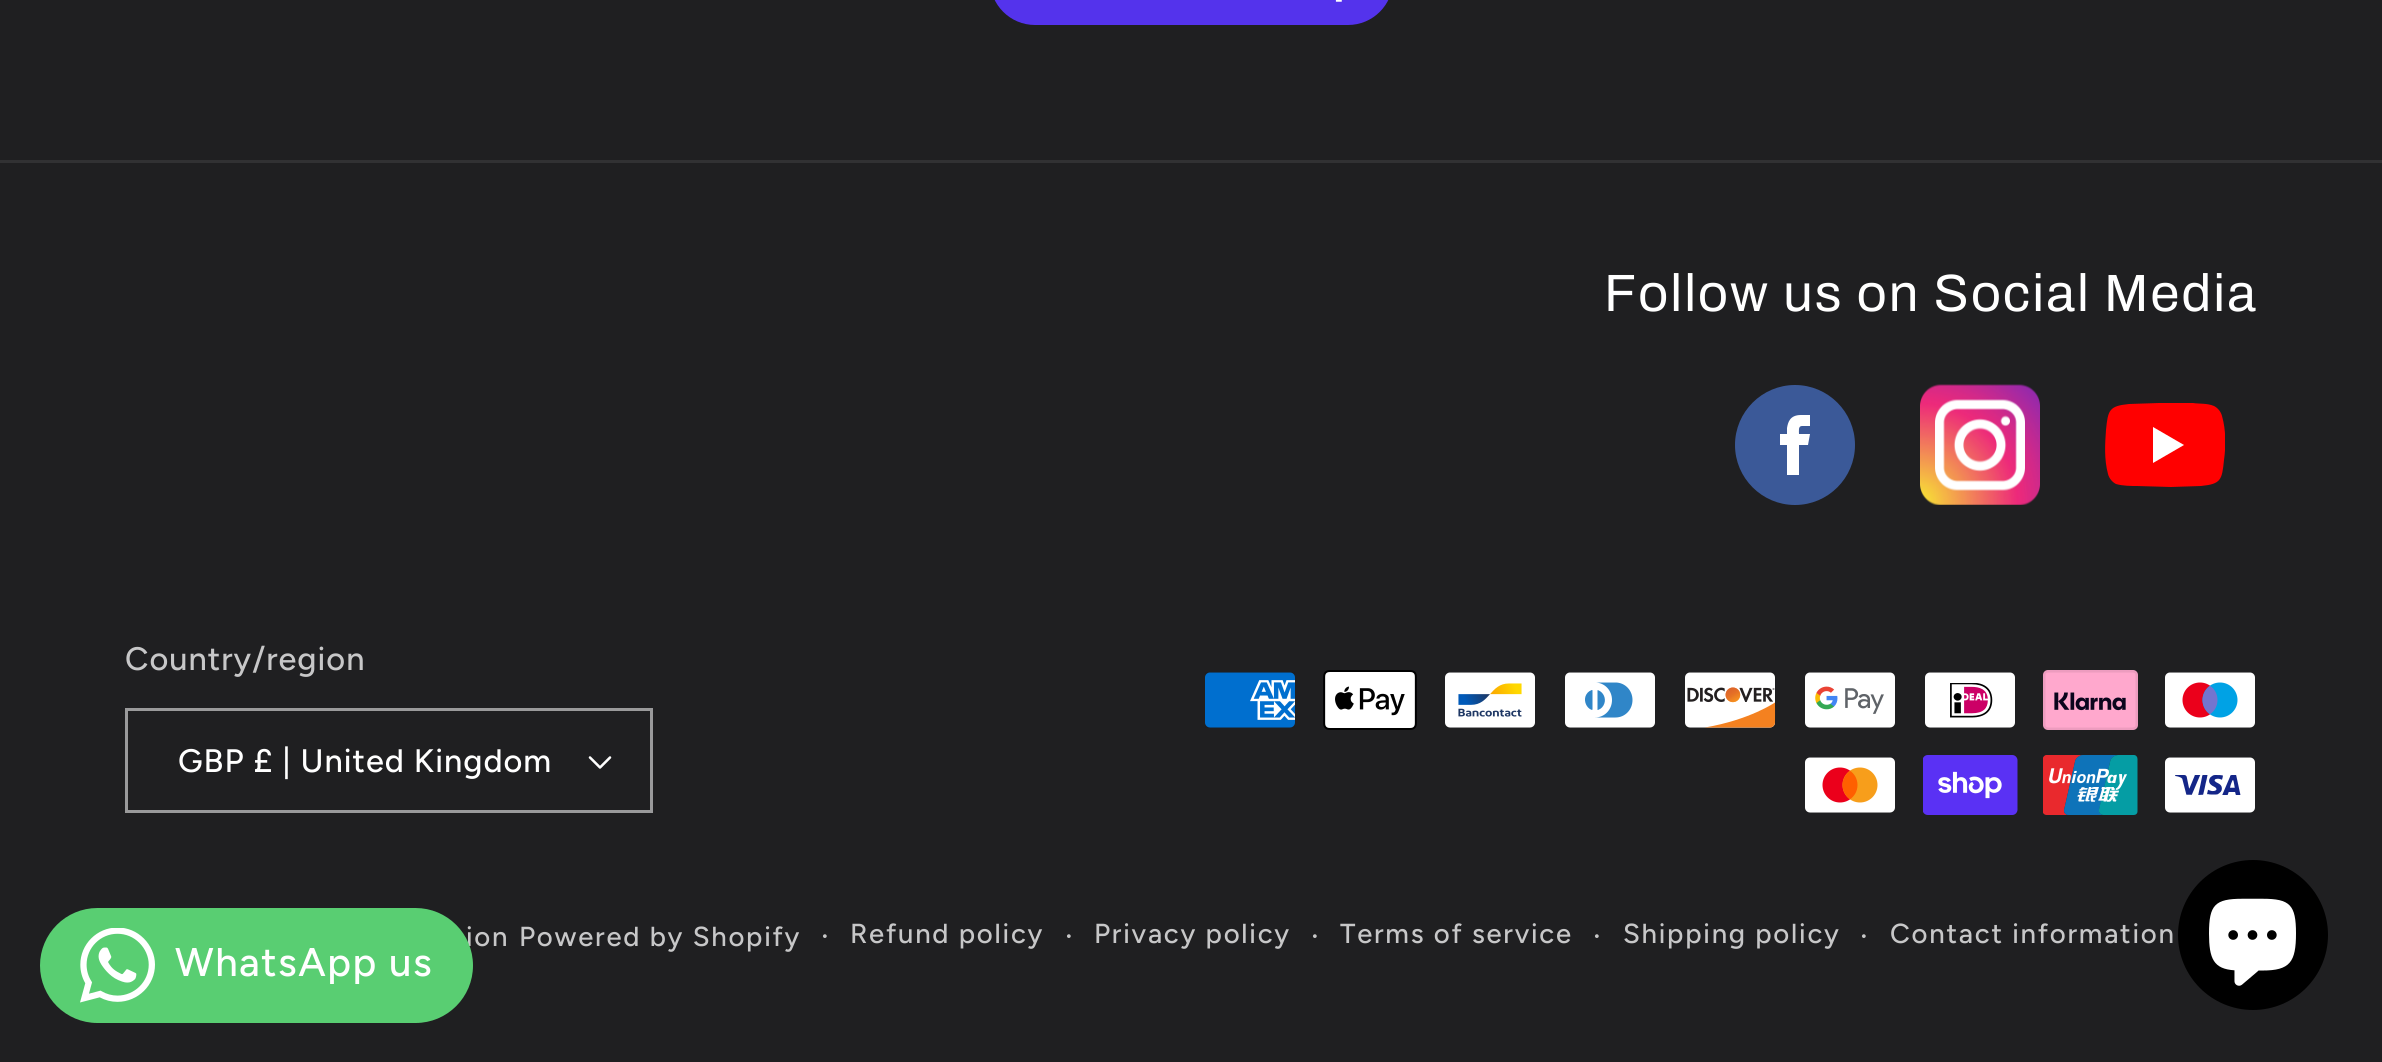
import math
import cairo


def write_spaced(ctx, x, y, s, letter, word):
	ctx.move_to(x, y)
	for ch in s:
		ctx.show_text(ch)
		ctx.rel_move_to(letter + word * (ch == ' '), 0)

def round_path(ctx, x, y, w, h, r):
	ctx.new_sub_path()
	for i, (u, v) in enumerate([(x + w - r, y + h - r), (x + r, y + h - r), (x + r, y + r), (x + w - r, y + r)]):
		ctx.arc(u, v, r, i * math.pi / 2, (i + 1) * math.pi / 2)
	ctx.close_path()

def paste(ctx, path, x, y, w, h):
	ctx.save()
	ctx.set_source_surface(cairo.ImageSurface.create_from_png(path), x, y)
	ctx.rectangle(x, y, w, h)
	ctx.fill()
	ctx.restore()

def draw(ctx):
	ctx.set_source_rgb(0.122, 0.122, 0.129)
	ctx.paint()
	ctx.set_source_rgb(0.329, 0.2, 0.922)
	round_path(ctx, 990, -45, 403, 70, 45)
	ctx.fill()
	paste(ctx, 'media/1.png', 1335, 0, 7, 2)
	ctx.set_source_rgb(0.192, 0.192, 0.2)
	ctx.rectangle(0, 160, 2382, 3)
	ctx.fill()
	ctx.select_font_face('Archivo')
	ctx.set_font_size(52.5)
	ctx.set_source_rgb(1, 1, 1)
	write_spaced(ctx, 1604, 311, 'Follow us on Social Media', 2.1, 0)
	ctx.set_source_rgb(0.231, 0.349, 0.596)
	ctx.new_path()
	ctx.move_to(1795, 385)
	ctx.curve_to(1828, 385, 1855, 412, 1855, 445)
	ctx.curve_to(1855, 478, 1828, 505, 1795, 505)
	ctx.curve_to(1762, 505, 1735, 478, 1735, 445)
	ctx.curve_to(1735, 412, 1762, 385, 1795, 385)
	ctx.close_path()
	ctx.fill()
	ctx.set_source_rgb(1, 1, 1)
	ctx.new_path()
	ctx.move_to(1802, 426)
	ctx.line_to(1810, 426)
	ctx.line_to(1810, 415)
	ctx.line_to(1801, 415)
	ctx.curve_to(1790, 415, 1788, 422, 1787, 428)
	ctx.line_to(1787, 434)
	ctx.line_to(1780, 434)
	ctx.line_to(1780, 445)
	ctx.line_to(1787, 445)
	ctx.line_to(1787, 475)
	ctx.line_to(1799, 475)
	ctx.line_to(1799, 445)
	ctx.line_to(1808, 445)
	ctx.line_to(1810, 434)
	ctx.line_to(1799, 434)
	ctx.curve_to(1799, 431, 1798, 426, 1802, 426)
	ctx.close_path()
	ctx.fill()
	paste(ctx, 'media/2.png', 1920, 384, 120, 121)
	ctx.save()
	ctx.rectangle(2105, 385, 120, 120)
	ctx.clip()
	ctx.set_source_rgb(1, 0, 0)
	ctx.new_path()
	ctx.move_to(2222, 416)
	ctx.curve_to(2221, 412, 2218, 408, 2214, 406)
	ctx.curve_to(2207, 403, 2199, 404, 2193, 403)
	ctx.line_to(2159, 403)
	ctx.line_to(2129, 404)
	ctx.curve_to(2109, 406, 2108, 410, 2106, 430)
	ctx.curve_to(2105, 444, 2104, 459, 2108, 474)
	ctx.curve_to(2109, 478, 2112, 482, 2116, 484)
	ctx.curve_to(2123, 486, 2131, 486, 2137, 486)
	ctx.line_to(2171, 487)
	ctx.line_to(2201, 486)
	ctx.curve_to(2221, 484, 2222, 480, 2224, 460)
	ctx.curve_to(2226, 446, 2226, 430, 2222, 416)
	ctx.fill()
	ctx.restore()
	ctx.new_path()
	ctx.move_to(2153, 463)
	ctx.line_to(2184, 445)
	ctx.line_to(2153, 427)
	ctx.close_path()
	ctx.fill()
	ctx.select_font_face('Figtree Medium')
	ctx.set_font_size(32.5)
	ctx.set_source_rgb(0.78, 0.78, 0.784)
	write_spaced(ctx, 125, 670, 'Country/region', 1, 0)
	paste(ctx, 'media/3.png', 588, 756, 24, 13)
	ctx.rectangle(126.5, 709.5, 525, 102)
	ctx.set_source_rgb(0.604, 0.604, 0.608)
	ctx.set_line_width(3)
	ctx.stroke()
	ctx.set_source_rgb(1, 1, 1)
	write_spaced(ctx, 178, 772, 'GBP £ | United Kingdom', 1, 0)
	paste(ctx, 'media/4.png', 1205, 672, 90, 56)
	paste(ctx, 'media/5.png', 1323, 670, 94, 60)
	paste(ctx, 'media/6.png', 1445, 672, 90, 56)
	paste(ctx, 'media/7.png', 1565, 672, 90, 56)
	paste(ctx, 'media/8.png', 1685, 672, 91, 56)
	paste(ctx, 'media/9.png', 1805, 672, 90, 56)
	paste(ctx, 'media/10.png', 1925, 672, 90, 56)
	paste(ctx, 'media/11.png', 2043, 670, 95, 60)
	paste(ctx, 'media/12.png', 2165, 672, 90, 56)
	paste(ctx, 'media/13.png', 1805, 757, 90, 56)
	paste(ctx, 'media/14.png', 1923, 755, 95, 60)
	paste(ctx, 'media/15.png', 2043, 755, 95, 60)
	paste(ctx, 'media/16.png', 2165, 757, 90, 56)
	ctx.set_font_size(27.5)
	ctx.set_source_rgb(0.78, 0.78, 0.784)
	write_spaced(ctx, 466, 946, 'ion', 1.75, 0)
	write_spaced(ctx, 519, 946, 'Powered by Shopify', 1.75, 0)
	ctx.set_font_size(30)
	write_spaced(ctx, 821, 946, '·', 1.75, 0)
	ctx.set_font_size(27.5)
	write_spaced(ctx, 850, 943, 'Refund policy', 1.75, 0)
	ctx.set_font_size(30)
	write_spaced(ctx, 1065, 946, '·', 1.75, 0)
	ctx.set_font_size(27.5)
	write_spaced(ctx, 1094, 943, 'Privacy policy', 1.75, 0)
	ctx.set_font_size(30)
	write_spaced(ctx, 1311, 946, '·', 1.75, 0)
	ctx.set_font_size(27.5)
	write_spaced(ctx, 1340, 943, 'Terms of service', 1.75, 0)
	ctx.set_font_size(30)
	write_spaced(ctx, 1593, 946, '·', 1.75, 0)
	ctx.set_font_size(27.5)
	write_spaced(ctx, 1623, 943, 'Shipping policy', 1.75, 0)
	ctx.set_font_size(30)
	write_spaced(ctx, 1860, 946, '·', 1.75, 0)
	ctx.set_font_size(27.5)
	write_spaced(ctx, 1890, 943, 'Contact information', 1.75, 0)
	ctx.set_source_rgb(0.349, 0.808, 0.447)
	round_path(ctx, 40, 908, 433, 115, 57.5)
	ctx.fill()
	paste(ctx, 'media/17.png', 80, 928, 75, 75)
	ctx.set_font_size(40)
	ctx.set_source_rgb(1, 1, 1)
	write_spaced(ctx, 175, 976, 'WhatsApp us', 1.5, 0)
	ctx.set_source_rgb(0, 0, 0)
	ctx.new_path()
	ctx.arc(2253, 935, 75, 0, 2 * math.pi)
	ctx.fill()
	paste(ctx, 'media/18.png', 2209, 898, 87, 88)


surface = cairo.ImageSurface(cairo.FORMAT_RGB24, 2382, 1062)
ctx = cairo.Context(surface)
options = cairo.FontOptions()
options.set_hint_metrics(cairo.HINT_METRICS_OFF)
options.set_hint_style(cairo.HINT_STYLE_NONE)
ctx.set_font_options(options)
ctx.set_miter_limit(4)
draw(ctx)
surface.write_to_png('image.png')
